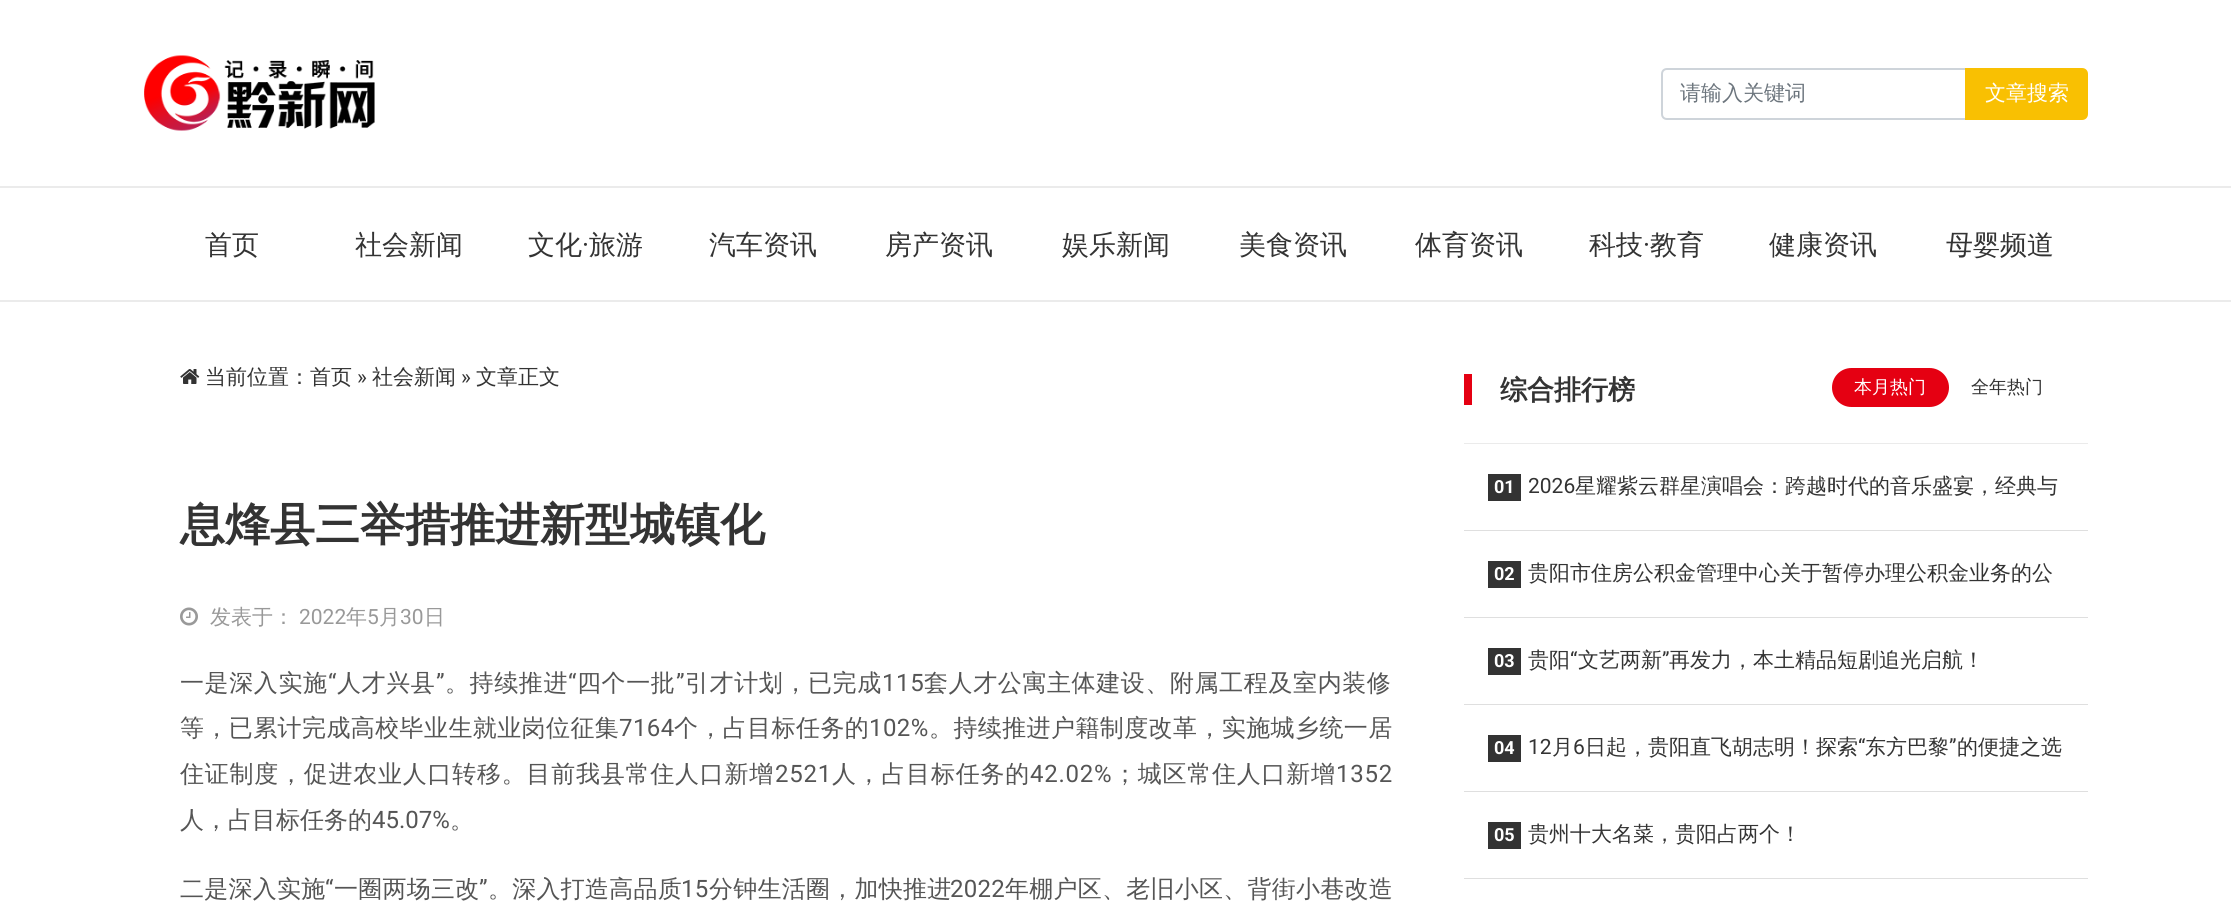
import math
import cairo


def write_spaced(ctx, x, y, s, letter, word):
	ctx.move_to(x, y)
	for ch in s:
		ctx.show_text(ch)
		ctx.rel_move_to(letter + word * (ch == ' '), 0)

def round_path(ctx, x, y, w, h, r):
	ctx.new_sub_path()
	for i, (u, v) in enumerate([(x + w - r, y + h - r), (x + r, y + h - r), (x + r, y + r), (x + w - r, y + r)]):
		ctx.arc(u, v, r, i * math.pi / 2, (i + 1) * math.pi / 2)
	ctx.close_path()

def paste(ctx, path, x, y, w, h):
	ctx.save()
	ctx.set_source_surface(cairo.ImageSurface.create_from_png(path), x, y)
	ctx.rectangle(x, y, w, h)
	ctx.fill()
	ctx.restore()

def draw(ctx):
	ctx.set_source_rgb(1, 1, 1)
	ctx.paint()
	paste(ctx, 'media/1.png', 144, 55, 231, 76)
	ctx.new_path()
	ctx.move_to(1667, 69)
	ctx.line_to(1966, 69)
	ctx.line_to(1966, 119)
	ctx.line_to(1667, 119)
	ctx.curve_to(1664, 119, 1662, 117, 1662, 114)
	ctx.line_to(1662, 74)
	ctx.curve_to(1662, 71, 1664, 69, 1667, 69)
	ctx.close_path()
	ctx.set_source_rgb(0.808, 0.831, 0.855)
	ctx.stroke()
	ctx.select_font_face('WenQuanYi Zen Hei Medium')
	ctx.set_font_size(21)
	ctx.set_source_rgb(0.424, 0.459, 0.49)
	ctx.move_to(1680, 100)
	ctx.show_text('请输入关键词')
	ctx.set_source_rgb(0.976, 0.753, 0.008)
	ctx.new_path()
	ctx.move_to(1965, 68)
	ctx.line_to(2082, 68)
	ctx.curve_to(2085.5, 68, 2088, 70.5, 2088, 74)
	ctx.line_to(2088, 114)
	ctx.curve_to(2088, 117.5, 2085.5, 120, 2082, 120)
	ctx.line_to(1965, 120)
	ctx.close_path()
	ctx.fill()
	ctx.set_source_rgb(1, 1, 1)
	ctx.move_to(1985, 100)
	ctx.show_text('文章搜索')
	ctx.set_source_rgb(0.918, 0.918, 0.918)
	ctx.rectangle(0, 186, 2231, 2)
	ctx.fill()
	ctx.rectangle(0, 300, 2231, 2)
	ctx.fill()
	ctx.set_font_size(27)
	ctx.set_source_rgb(0.2, 0.2, 0.2)
	for x, y, s in [
		(205, 254, '首页'),
		(355, 254, '社会新闻'),
		(528, 254, '文化'),
	]:
		ctx.move_to(x, y)
		ctx.show_text(s)
	ctx.select_font_face('Roboto')
	ctx.move_to(582, 254)
	ctx.show_text('·')
	ctx.select_font_face('WenQuanYi Zen Hei Medium')
	for x, y, s in [
		(589, 254, '旅游'),
		(709, 254, '汽车资讯'),
		(885, 254, '房产资讯'),
		(1062, 254, '娱乐新闻'),
		(1239, 254, '美食资讯'),
		(1415, 254, '体育资讯'),
		(1589, 254, '科技'),
	]:
		ctx.move_to(x, y)
		ctx.show_text(s)
	ctx.select_font_face('Roboto')
	ctx.move_to(1643, 254)
	ctx.show_text('·')
	ctx.select_font_face('WenQuanYi Zen Hei Medium')
	for x, y, s in [
		(1650, 254, '教育'),
		(1769, 254, '健康资讯'),
		(1946, 254, '母婴频道'),
	]:
		ctx.move_to(x, y)
		ctx.show_text(s)
	paste(ctx, 'media/2.png', 180, 369, 20, 15)
	ctx.set_font_size(21)
	ctx.move_to(205, 384)
	ctx.show_text('当前位置：首页')
	ctx.select_font_face('Roboto')
	ctx.move_to(357, 384)
	ctx.show_text('»')
	ctx.select_font_face('WenQuanYi Zen Hei Medium')
	ctx.move_to(372, 384)
	ctx.show_text('社会新闻')
	ctx.select_font_face('Roboto')
	ctx.move_to(461, 384)
	ctx.show_text('»')
	ctx.select_font_face('WenQuanYi Zen Hei Medium')
	ctx.move_to(476, 384)
	ctx.show_text('文章正文')
	ctx.select_font_face('WenQuanYi Zen Hei', cairo.FONT_SLANT_NORMAL, cairo.FONT_WEIGHT_BOLD)
	ctx.set_font_size(45)
	ctx.move_to(180, 540)
	ctx.show_text('息烽县三举措推进新型城镇化')
	paste(ctx, 'media/3.png', 180, 607, 18, 19)
	ctx.select_font_face('WenQuanYi Zen Hei Medium')
	ctx.set_font_size(21)
	ctx.set_source_rgb(0.6, 0.6, 0.6)
	ctx.move_to(210, 624)
	ctx.show_text('发表于：')
	ctx.select_font_face('Roboto')
	ctx.move_to(299, 624)
	ctx.show_text('2022')
	ctx.select_font_face('WenQuanYi Zen Hei Medium')
	ctx.move_to(346, 624)
	ctx.show_text('年')
	ctx.select_font_face('Roboto')
	ctx.move_to(367, 624)
	ctx.show_text('5')
	ctx.select_font_face('WenQuanYi Zen Hei Medium')
	ctx.move_to(379, 624)
	ctx.show_text('月')
	ctx.select_font_face('Roboto')
	ctx.move_to(400, 624)
	ctx.show_text('30')
	ctx.select_font_face('WenQuanYi Zen Hei Medium')
	ctx.move_to(424, 624)
	ctx.show_text('日')
	ctx.set_font_size(24)
	ctx.set_source_rgb(0.333, 0.333, 0.333)
	write_spaced(ctx, 180, 691, '一是深入实施', 0.6, 0)
	ctx.select_font_face('Roboto')
	write_spaced(ctx, 328, 691, '“', 0.6, 0)
	ctx.select_font_face('WenQuanYi Zen Hei Medium')
	write_spaced(ctx, 337, 691, '人才兴县', 0.6, 0)
	ctx.select_font_face('Roboto')
	write_spaced(ctx, 436, 691, '”', 0.6, 0)
	ctx.select_font_face('WenQuanYi Zen Hei Medium')
	write_spaced(ctx, 445, 691, '。持续推进', 0.6, 0)
	ctx.select_font_face('Roboto')
	write_spaced(ctx, 568, 691, '“', 0.6, 0)
	ctx.select_font_face('WenQuanYi Zen Hei Medium')
	write_spaced(ctx, 577, 691, '四个一批', 0.6, 0)
	ctx.select_font_face('Roboto')
	write_spaced(ctx, 676, 691, '”', 0.6, 0)
	ctx.select_font_face('WenQuanYi Zen Hei Medium')
	write_spaced(ctx, 685, 691, '引才计划，已完成', 0.6, 0)
	ctx.select_font_face('Roboto')
	write_spaced(ctx, 882, 691, '115', 0.6, 0)
	ctx.select_font_face('WenQuanYi Zen Hei Medium')
	write_spaced(ctx, 924, 691, '套人才公寓主体建设、附属工程及室内装修', 0.6, 0)
	write_spaced(ctx, 180, 736, '等，已累计完成高校毕业生就业岗位征集', 0.4, 0)
	ctx.select_font_face('Roboto')
	write_spaced(ctx, 619, 736, '7164', 0.4, 0)
	ctx.select_font_face('WenQuanYi Zen Hei Medium')
	write_spaced(ctx, 674, 736, '个，占目标任务的', 0.4, 0)
	ctx.select_font_face('Roboto')
	write_spaced(ctx, 869, 736, '102%', 0.4, 0)
	ctx.select_font_face('WenQuanYi Zen Hei Medium')
	write_spaced(ctx, 929, 736, '。持续推进户籍制度改革，实施城乡统一居', 0.4, 0)
	write_spaced(ctx, 180, 782, '住证制度，促进农业人口转移。目前我县常住人口新增', 0.75, 0)
	ctx.select_font_face('Roboto')
	write_spaced(ctx, 775, 782, '2521', 0.75, 0)
	ctx.select_font_face('WenQuanYi Zen Hei Medium')
	write_spaced(ctx, 832, 782, '人，占目标任务的', 0.75, 0)
	ctx.select_font_face('Roboto')
	write_spaced(ctx, 1030, 782, '42.02%', 0.75, 0)
	ctx.select_font_face('WenQuanYi Zen Hei Medium')
	write_spaced(ctx, 1113, 782, '；城区常住人口新增', 0.75, 0)
	ctx.select_font_face('Roboto')
	write_spaced(ctx, 1336, 782, '1352', 0.75, 0)
	ctx.select_font_face('WenQuanYi Zen Hei Medium')
	ctx.move_to(180, 828)
	ctx.show_text('人，占目标任务的')
	ctx.select_font_face('Roboto')
	ctx.move_to(372, 828)
	ctx.show_text('45.07%')
	ctx.select_font_face('WenQuanYi Zen Hei Medium')
	ctx.move_to(450, 828)
	ctx.show_text('。')
	write_spaced(ctx, 180, 897, '二是深入实施', 0.25, 0)
	ctx.select_font_face('Roboto')
	write_spaced(ctx, 325, 897, '“', 0.25, 0)
	ctx.select_font_face('WenQuanYi Zen Hei Medium')
	write_spaced(ctx, 334, 897, '一圈两场三改', 0.25, 0)
	ctx.select_font_face('Roboto')
	write_spaced(ctx, 479, 897, '”', 0.25, 0)
	ctx.select_font_face('WenQuanYi Zen Hei Medium')
	write_spaced(ctx, 488, 897, '。深入打造高品质', 0.25, 0)
	ctx.select_font_face('Roboto')
	write_spaced(ctx, 681, 897, '15', 0.25, 0)
	ctx.select_font_face('WenQuanYi Zen Hei Medium')
	write_spaced(ctx, 709, 897, '分钟生活圈，加快推进', 0.25, 0)
	ctx.select_font_face('Roboto')
	write_spaced(ctx, 950, 897, '2022', 0.25, 0)
	ctx.select_font_face('WenQuanYi Zen Hei Medium')
	write_spaced(ctx, 1005, 897, '年棚户区、老旧小区、背街小巷改造', 0.25, 0)
	ctx.set_source_rgb(0.918, 0.918, 0.918)
	ctx.rectangle(1464, 443, 624, 1)
	ctx.fill()
	ctx.set_source_rgb(0.898, 0, 0.071)
	ctx.rectangle(1464, 374, 8, 31)
	ctx.fill()
	ctx.select_font_face('WenQuanYi Zen Hei', cairo.FONT_SLANT_NORMAL, cairo.FONT_WEIGHT_BOLD)
	ctx.set_font_size(27)
	ctx.set_source_rgb(0.2, 0.2, 0.2)
	ctx.move_to(1500, 399)
	ctx.show_text('综合排行榜')
	ctx.set_source_rgb(0.898, 0, 0.071)
	round_path(ctx, 1832, 368, 117, 39, 19.5)
	ctx.fill()
	ctx.select_font_face('WenQuanYi Zen Hei Medium')
	ctx.set_font_size(18)
	ctx.set_source_rgb(1, 1, 1)
	ctx.move_to(1854, 393)
	ctx.show_text('本月热门')
	ctx.set_source_rgb(0.2, 0.2, 0.2)
	ctx.move_to(1971, 393)
	ctx.show_text('全年热门')
	ctx.set_source_rgb(0.875, 0.875, 0.875)
	ctx.rectangle(1464, 530, 624, 1)
	ctx.fill()
	ctx.set_source_rgb(0.2, 0.2, 0.2)
	ctx.rectangle(1488, 474, 33, 27)
	ctx.fill()
	ctx.select_font_face('Roboto', cairo.FONT_SLANT_NORMAL, cairo.FONT_WEIGHT_BOLD)
	ctx.set_source_rgb(1, 1, 1)
	ctx.move_to(1494, 493)
	ctx.show_text('01')
	ctx.select_font_face('Roboto')
	ctx.set_font_size(21)
	ctx.set_source_rgb(0.2, 0.2, 0.2)
	ctx.move_to(1528, 493)
	ctx.show_text('2026')
	ctx.select_font_face('WenQuanYi Zen Hei Medium')
	ctx.move_to(1575, 493)
	ctx.show_text('星耀紫云群星演唱会：跨越时代的音乐盛宴，经典与')
	ctx.set_source_rgb(0.875, 0.875, 0.875)
	ctx.rectangle(1464, 617, 624, 1)
	ctx.fill()
	ctx.set_source_rgb(0.2, 0.2, 0.2)
	ctx.rectangle(1488, 561, 33, 27)
	ctx.fill()
	ctx.select_font_face('Roboto', cairo.FONT_SLANT_NORMAL, cairo.FONT_WEIGHT_BOLD)
	ctx.set_font_size(18)
	ctx.set_source_rgb(1, 1, 1)
	ctx.move_to(1494, 580)
	ctx.show_text('02')
	ctx.select_font_face('WenQuanYi Zen Hei Medium')
	ctx.set_font_size(21)
	ctx.set_source_rgb(0.2, 0.2, 0.2)
	ctx.move_to(1528, 580)
	ctx.show_text('贵阳市住房公积金管理中心关于暂停办理公积金业务的公')
	ctx.set_source_rgb(0.875, 0.875, 0.875)
	ctx.rectangle(1464, 704, 624, 1)
	ctx.fill()
	ctx.set_source_rgb(0.2, 0.2, 0.2)
	ctx.rectangle(1488, 648, 33, 27)
	ctx.fill()
	ctx.select_font_face('Roboto', cairo.FONT_SLANT_NORMAL, cairo.FONT_WEIGHT_BOLD)
	ctx.set_font_size(18)
	ctx.set_source_rgb(1, 1, 1)
	ctx.move_to(1494, 667)
	ctx.show_text('03')
	ctx.select_font_face('WenQuanYi Zen Hei Medium')
	ctx.set_font_size(21)
	ctx.set_source_rgb(0.2, 0.2, 0.2)
	ctx.move_to(1528, 667)
	ctx.show_text('贵阳')
	ctx.select_font_face('Roboto')
	ctx.move_to(1570, 667)
	ctx.show_text('“')
	ctx.select_font_face('WenQuanYi Zen Hei Medium')
	ctx.move_to(1578, 667)
	ctx.show_text('文艺两新')
	ctx.select_font_face('Roboto')
	ctx.move_to(1662, 667)
	ctx.show_text('”')
	ctx.select_font_face('WenQuanYi Zen Hei Medium')
	ctx.move_to(1669, 667)
	ctx.show_text('再发力，本土精品短剧追光启航！')
	ctx.set_source_rgb(0.875, 0.875, 0.875)
	ctx.rectangle(1464, 791, 624, 1)
	ctx.fill()
	ctx.set_source_rgb(0.2, 0.2, 0.2)
	ctx.rectangle(1488, 735, 33, 27)
	ctx.fill()
	ctx.select_font_face('Roboto', cairo.FONT_SLANT_NORMAL, cairo.FONT_WEIGHT_BOLD)
	ctx.set_font_size(18)
	ctx.set_source_rgb(1, 1, 1)
	ctx.move_to(1494, 754)
	ctx.show_text('04')
	ctx.select_font_face('Roboto')
	ctx.set_font_size(21)
	ctx.set_source_rgb(0.2, 0.2, 0.2)
	ctx.move_to(1528, 754)
	ctx.show_text('12')
	ctx.select_font_face('WenQuanYi Zen Hei Medium')
	ctx.move_to(1552, 754)
	ctx.show_text('月')
	ctx.select_font_face('Roboto')
	ctx.move_to(1573, 754)
	ctx.show_text('6')
	ctx.select_font_face('WenQuanYi Zen Hei Medium')
	ctx.move_to(1585, 754)
	ctx.show_text('日起，贵阳直飞胡志明！探索')
	ctx.select_font_face('Roboto')
	ctx.move_to(1858, 754)
	ctx.show_text('“')
	ctx.select_font_face('WenQuanYi Zen Hei Medium')
	ctx.move_to(1865, 754)
	ctx.show_text('东方巴黎')
	ctx.select_font_face('Roboto')
	ctx.move_to(1949, 754)
	ctx.show_text('”')
	ctx.select_font_face('WenQuanYi Zen Hei Medium')
	ctx.move_to(1957, 754)
	ctx.show_text('的便捷之选')
	ctx.set_source_rgb(0.875, 0.875, 0.875)
	ctx.rectangle(1464, 878, 624, 1)
	ctx.fill()
	ctx.set_source_rgb(0.2, 0.2, 0.2)
	ctx.rectangle(1488, 822, 33, 27)
	ctx.fill()
	ctx.select_font_face('Roboto', cairo.FONT_SLANT_NORMAL, cairo.FONT_WEIGHT_BOLD)
	ctx.set_font_size(18)
	ctx.set_source_rgb(1, 1, 1)
	ctx.move_to(1494, 841)
	ctx.show_text('05')
	ctx.select_font_face('WenQuanYi Zen Hei Medium')
	ctx.set_font_size(21)
	ctx.set_source_rgb(0.2, 0.2, 0.2)
	ctx.move_to(1528, 841)
	ctx.show_text('贵州十大名菜，贵阳占两个！')


surface = cairo.ImageSurface(cairo.FORMAT_RGB24, 2231, 905)
ctx = cairo.Context(surface)
options = cairo.FontOptions()
options.set_hint_metrics(cairo.HINT_METRICS_OFF)
options.set_hint_style(cairo.HINT_STYLE_NONE)
ctx.set_font_options(options)
ctx.set_miter_limit(4)
draw(ctx)
surface.write_to_png('image.png')
